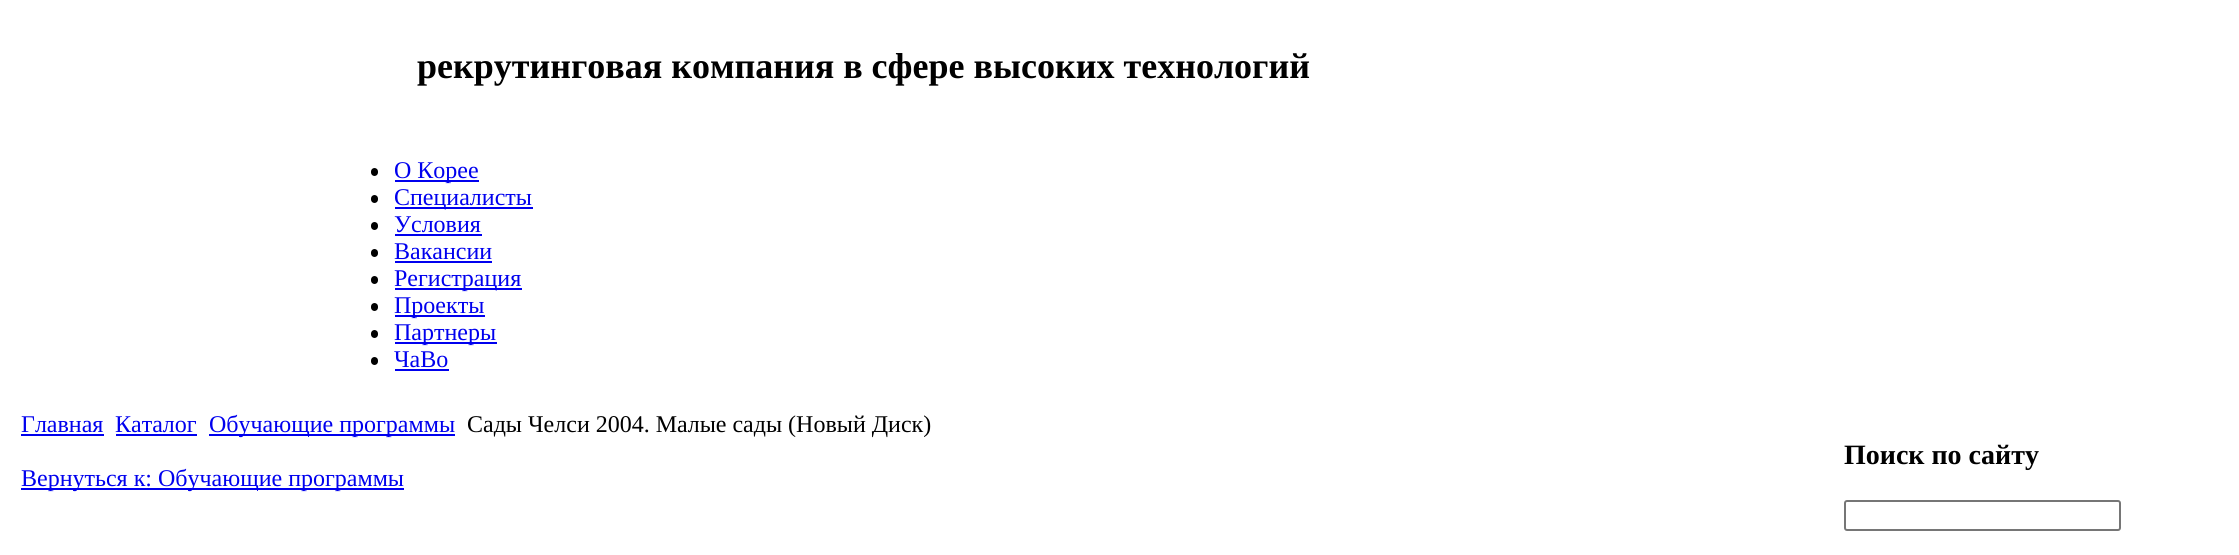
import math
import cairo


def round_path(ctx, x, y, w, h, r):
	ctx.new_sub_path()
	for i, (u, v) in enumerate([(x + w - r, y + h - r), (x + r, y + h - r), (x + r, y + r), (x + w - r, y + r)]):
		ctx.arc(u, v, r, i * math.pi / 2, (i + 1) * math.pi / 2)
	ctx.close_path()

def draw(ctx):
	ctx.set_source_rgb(1, 1, 1)
	ctx.paint()
	ctx.select_font_face('Liberation Serif', cairo.FONT_SLANT_NORMAL, cairo.FONT_WEIGHT_BOLD)
	ctx.set_font_size(36)
	ctx.set_source_rgb(0, 0, 0)
	ctx.move_to(417, 78)
	ctx.show_text('рекрутинговая компания в сфере высоких технологий')
	round_path(ctx, 371, 168, 7, 8, 3.5)
	ctx.fill()
	ctx.set_source_rgb(0, 0, 0.933)
	ctx.rectangle(395, 180, 84, 2)
	ctx.fill()
	ctx.select_font_face('Liberation Serif')
	ctx.set_font_size(24)
	ctx.move_to(394, 178)
	ctx.show_text('О Корее')
	ctx.set_source_rgb(0, 0, 0)
	round_path(ctx, 371, 195, 7, 8, 3.5)
	ctx.fill()
	ctx.set_source_rgb(0, 0, 0.933)
	ctx.rectangle(395, 207, 138, 2)
	ctx.fill()
	ctx.move_to(394, 205)
	ctx.show_text('Специалисты')
	ctx.set_source_rgb(0, 0, 0)
	round_path(ctx, 371, 222, 7, 8, 3.5)
	ctx.fill()
	ctx.set_source_rgb(0, 0, 0.933)
	ctx.move_to(394, 232)
	ctx.show_text('Условия')
	ctx.rectangle(395, 234, 87, 2)
	ctx.fill()
	ctx.set_source_rgb(0, 0, 0)
	round_path(ctx, 371, 249, 7, 8, 3.5)
	ctx.fill()
	ctx.set_source_rgb(0, 0, 0.933)
	ctx.move_to(394, 259)
	ctx.show_text('Вакансии')
	ctx.rectangle(395, 261, 97, 2)
	ctx.fill()
	ctx.set_source_rgb(0, 0, 0)
	round_path(ctx, 371, 276, 7, 8, 3.5)
	ctx.fill()
	ctx.set_source_rgb(0, 0, 0.933)
	ctx.rectangle(395, 288, 127, 2)
	ctx.fill()
	ctx.move_to(394, 286)
	ctx.show_text('Регистрация')
	ctx.set_source_rgb(0, 0, 0)
	round_path(ctx, 371, 303, 7, 8, 3.5)
	ctx.fill()
	ctx.set_source_rgb(0, 0, 0.933)
	ctx.rectangle(395, 315, 90, 2)
	ctx.fill()
	ctx.move_to(394, 313)
	ctx.show_text('Проекты')
	ctx.set_source_rgb(0, 0, 0)
	round_path(ctx, 371, 330, 7, 8, 3.5)
	ctx.fill()
	ctx.set_source_rgb(0, 0, 0.933)
	ctx.rectangle(395, 342, 102, 2)
	ctx.fill()
	ctx.move_to(394, 340)
	ctx.show_text('Партнеры')
	ctx.set_source_rgb(0, 0, 0)
	round_path(ctx, 371, 357, 7, 8, 3.5)
	ctx.fill()
	ctx.set_source_rgb(0, 0, 0.933)
	ctx.move_to(394, 367)
	ctx.show_text('ЧаВо')
	ctx.rectangle(395, 369, 54, 2)
	ctx.fill()
	ctx.move_to(21, 432)
	ctx.show_text('Главная')
	ctx.rectangle(21, 434, 83, 2)
	ctx.fill()
	ctx.move_to(115, 432)
	ctx.show_text('Каталог')
	ctx.rectangle(116, 434, 81, 2)
	ctx.fill()
	ctx.rectangle(209, 434, 246, 2)
	ctx.fill()
	ctx.move_to(209, 432)
	ctx.show_text('Обучающие программы')
	ctx.set_source_rgb(0, 0, 0)
	ctx.move_to(467, 432)
	ctx.show_text('Сады Челси 2004. Малые сады (Новый Диск)')
	ctx.set_source_rgb(0, 0, 0.933)
	ctx.rectangle(21, 488, 383, 2)
	ctx.fill()
	ctx.move_to(21, 486)
	ctx.show_text('Вернуться к: Обучающие программы')
	ctx.select_font_face('Liberation Serif', cairo.FONT_SLANT_NORMAL, cairo.FONT_WEIGHT_BOLD)
	ctx.set_font_size(28)
	ctx.set_source_rgb(0, 0, 0)
	ctx.move_to(1844, 464)
	ctx.show_text('Поиск по сайту')
	round_path(ctx, 1845, 501, 275, 29, 2)
	ctx.set_source_rgb(0.463, 0.463, 0.463)
	ctx.stroke()


surface = cairo.ImageSurface(cairo.FORMAT_RGB24, 2239, 555)
ctx = cairo.Context(surface)
options = cairo.FontOptions()
options.set_hint_metrics(cairo.HINT_METRICS_OFF)
options.set_hint_style(cairo.HINT_STYLE_NONE)
ctx.set_font_options(options)
ctx.set_miter_limit(4)
draw(ctx)
surface.write_to_png('image.png')
